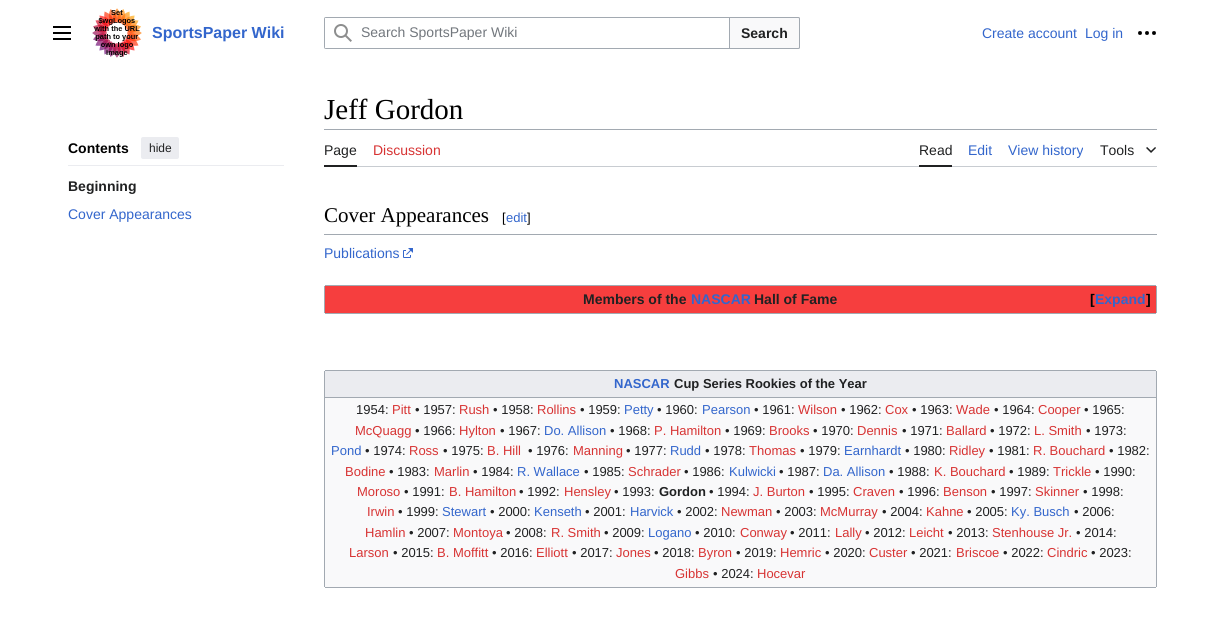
import math
import cairo


def round_path(ctx, x, y, w, h, r):
	ctx.new_sub_path()
	for i, (u, v) in enumerate([(x + w - r, y + h - r), (x + r, y + h - r), (x + r, y + r), (x + w - r, y + r)]):
		ctx.arc(u, v, r, i * math.pi / 2, (i + 1) * math.pi / 2)
	ctx.close_path()

def paste(ctx, path, x, y, w, h):
	ctx.save()
	ctx.set_source_surface(cairo.ImageSurface.create_from_png(path), x, y)
	ctx.rectangle(x, y, w, h)
	ctx.fill()
	ctx.restore()

def draw(ctx):
	ctx.set_source_rgb(1, 1, 1)
	ctx.paint()
	paste(ctx, 'media/1.png', 53, 26, 18, 14)
	paste(ctx, 'media/2.png', 92, 8, 50, 50)
	ctx.select_font_face('Liberation Sans', cairo.FONT_SLANT_NORMAL, cairo.FONT_WEIGHT_BOLD)
	ctx.set_font_size(16)
	ctx.set_source_rgb(0.2, 0.4, 0.8)
	ctx.move_to(152, 38)
	ctx.show_text('SportsPaper Wiki')
	round_path(ctx, 324.5, 17.5, 475, 31, 1.5)
	ctx.set_source_rgb(0.635, 0.663, 0.694)
	ctx.set_line_width(1)
	ctx.stroke()
	ctx.set_source_rgb(0.973, 0.976, 0.98)
	ctx.new_path()
	ctx.move_to(729.5, 17.5)
	ctx.line_to(798, 17.5)
	ctx.curve_to(799, 17.5, 799.5, 18, 799.5, 19)
	ctx.line_to(799.5, 47)
	ctx.curve_to(799.5, 48, 799, 48.5, 798, 48.5)
	ctx.line_to(729.5, 48.5)
	ctx.close_path()
	ctx.fill_preserve()
	ctx.set_source_rgb(0.635, 0.663, 0.694)
	ctx.stroke()
	ctx.set_source_rgb(1, 1, 1)
	ctx.new_path()
	ctx.move_to(326, 17)
	ctx.line_to(730, 17)
	ctx.line_to(730, 49)
	ctx.line_to(326, 49)
	ctx.curve_to(325, 49, 324, 48, 324, 47)
	ctx.line_to(324, 19)
	ctx.curve_to(324, 18, 325, 17, 326, 17)
	ctx.close_path()
	ctx.fill()
	ctx.set_source_rgb(0.635, 0.663, 0.694)
	ctx.set_fill_rule(cairo.FILL_RULE_EVEN_ODD)
	ctx.new_path()
	ctx.move_to(326, 17)
	ctx.curve_to(325, 17, 324, 18, 324, 19)
	ctx.line_to(324, 47)
	ctx.curve_to(324, 48, 325, 49, 326, 49)
	ctx.line_to(730, 49)
	ctx.line_to(730, 17)
	ctx.close_path()
	ctx.move_to(325, 18)
	ctx.line_to(325, 48)
	ctx.line_to(729, 48)
	ctx.line_to(729, 18)
	ctx.close_path()
	ctx.fill()
	paste(ctx, 'media/3.png', 334, 24, 18, 18)
	ctx.select_font_face('Liberation Sans')
	ctx.set_font_size(14)
	ctx.set_source_rgb(0.447, 0.467, 0.49)
	ctx.move_to(361, 37)
	ctx.show_text('Search SportsPaper Wiki')
	ctx.select_font_face('Liberation Sans', cairo.FONT_SLANT_NORMAL, cairo.FONT_WEIGHT_BOLD)
	ctx.set_source_rgb(0.125, 0.129, 0.133)
	ctx.move_to(741, 38)
	ctx.show_text('Search')
	ctx.select_font_face('Liberation Sans')
	ctx.set_source_rgb(0.2, 0.4, 0.8)
	ctx.move_to(982, 38)
	ctx.show_text('Create account')
	ctx.move_to(1085, 38)
	ctx.show_text('Log in')
	paste(ctx, 'media/4.png', 1138, 31, 18, 4)
	ctx.set_source_rgb(0.918, 0.925, 0.941)
	ctx.rectangle(68, 165, 216, 1)
	ctx.fill()
	ctx.select_font_face('Liberation Sans', cairo.FONT_SLANT_NORMAL, cairo.FONT_WEIGHT_BOLD)
	ctx.set_source_rgb(0, 0, 0)
	ctx.move_to(68, 153)
	ctx.show_text('Contents')
	ctx.set_source_rgb(0.918, 0.925, 0.941)
	round_path(ctx, 141, 137, 38, 22, 2)
	ctx.fill()
	ctx.select_font_face('Liberation Sans')
	ctx.set_font_size(12)
	ctx.set_source_rgb(0.125, 0.129, 0.133)
	ctx.move_to(149, 152)
	ctx.show_text('hide')
	ctx.select_font_face('Liberation Sans', cairo.FONT_SLANT_NORMAL, cairo.FONT_WEIGHT_BOLD)
	ctx.set_font_size(14)
	ctx.move_to(68, 191)
	ctx.show_text('Beginning')
	ctx.select_font_face('Liberation Sans')
	ctx.set_source_rgb(0.2, 0.4, 0.8)
	ctx.move_to(68, 219)
	ctx.show_text('Cover Appearances')
	ctx.select_font_face('Liberation Serif')
	ctx.set_font_size(29)
	ctx.set_source_rgb(0, 0, 0)
	ctx.move_to(324, 119)
	ctx.show_text('Jeff Gordon')
	ctx.set_source_rgb(0.635, 0.663, 0.694)
	ctx.rectangle(324, 129, 833, 1)
	ctx.fill()
	ctx.set_source_rgb(0.784, 0.8, 0.82)
	ctx.rectangle(357, 166, 800, 1)
	ctx.fill()
	ctx.set_source_rgb(0.125, 0.129, 0.133)
	ctx.rectangle(324, 165, 33, 2)
	ctx.fill()
	ctx.select_font_face('Liberation Sans')
	ctx.set_font_size(14)
	ctx.move_to(324, 155)
	ctx.show_text('Page')
	ctx.set_source_rgb(0.843, 0.2, 0.2)
	ctx.move_to(373, 155)
	ctx.show_text('Discussion')
	ctx.set_source_rgb(0.125, 0.129, 0.133)
	ctx.rectangle(919, 165, 33, 2)
	ctx.fill()
	ctx.move_to(919, 155)
	ctx.show_text('Read')
	ctx.set_source_rgb(0.2, 0.4, 0.8)
	ctx.move_to(968, 155)
	ctx.show_text('Edit')
	ctx.move_to(1008, 155)
	ctx.show_text('View history')
	ctx.set_source_rgb(0.125, 0.129, 0.133)
	ctx.move_to(1100, 155)
	ctx.show_text('Tools')
	paste(ctx, 'media/5.png', 1146, 147, 10, 6)
	ctx.set_source_rgb(0.635, 0.663, 0.694)
	ctx.rectangle(324, 234, 833, 1)
	ctx.fill()
	ctx.select_font_face('Liberation Serif')
	ctx.set_font_size(21)
	ctx.set_source_rgb(0, 0, 0)
	ctx.move_to(324, 222)
	ctx.show_text('Cover Appearances')
	ctx.select_font_face('Liberation Sans')
	ctx.set_font_size(13)
	ctx.move_to(502, 222)
	ctx.show_text('[')
	ctx.set_source_rgb(0.2, 0.4, 0.8)
	ctx.move_to(506, 222)
	ctx.show_text('edit')
	ctx.set_source_rgb(0, 0, 0)
	ctx.move_to(527, 222)
	ctx.show_text(']')
	ctx.set_font_size(14)
	ctx.set_source_rgb(0.2, 0.4, 0.8)
	ctx.move_to(324, 258)
	ctx.show_text('Publications')
	paste(ctx, 'media/6.png', 403, 248, 10, 10)
	ctx.set_source_rgb(0.635, 0.663, 0.694)
	ctx.rectangle(324, 285, 833, 1)
	ctx.rectangle(1156, 285, 1, 29)
	ctx.rectangle(324, 313, 833, 1)
	ctx.rectangle(324, 285, 1, 29)
	ctx.fill()
	ctx.set_source_rgb(0.961, 0.243, 0.243)
	ctx.rectangle(325, 286, 831, 27)
	ctx.fill()
	ctx.select_font_face('Liberation Sans', cairo.FONT_SLANT_NORMAL, cairo.FONT_WEIGHT_BOLD)
	ctx.set_source_rgb(0.125, 0.129, 0.133)
	ctx.move_to(583, 304)
	ctx.show_text('Members of the')
	ctx.set_source_rgb(0.2, 0.4, 0.8)
	ctx.move_to(691, 304)
	ctx.show_text('NASCAR')
	ctx.set_source_rgb(0.125, 0.129, 0.133)
	ctx.move_to(754, 304)
	ctx.show_text('Hall of Fame')
	ctx.set_source_rgb(0, 0, 0)
	ctx.move_to(1090, 304)
	ctx.show_text('[')
	ctx.set_source_rgb(0.2, 0.4, 0.8)
	ctx.move_to(1095, 304)
	ctx.show_text('Expand')
	ctx.set_source_rgb(0, 0, 0)
	ctx.move_to(1146, 304)
	ctx.show_text(']')
	ctx.set_source_rgb(0.973, 0.976, 0.98)
	ctx.rectangle(325, 398, 831, 189)
	ctx.fill()
	ctx.set_source_rgb(0.635, 0.663, 0.694)
	ctx.rectangle(324, 370, 833, 1)
	ctx.rectangle(1156, 370, 1, 218)
	ctx.rectangle(324, 587, 833, 1)
	ctx.rectangle(324, 370, 1, 218)
	ctx.fill()
	ctx.set_source_rgb(0.918, 0.925, 0.941)
	ctx.rectangle(325, 371, 831, 26)
	ctx.fill()
	ctx.set_font_size(13)
	ctx.set_source_rgb(0.2, 0.4, 0.8)
	ctx.move_to(614, 388)
	ctx.show_text('NASCAR')
	ctx.set_source_rgb(0.125, 0.129, 0.133)
	ctx.move_to(674, 388)
	ctx.show_text('Cup Series Rookies of the Year')
	ctx.set_source_rgb(0.635, 0.663, 0.694)
	ctx.rectangle(324, 397, 833, 1)
	ctx.fill()
	ctx.select_font_face('Liberation Sans')
	ctx.set_source_rgb(0.125, 0.129, 0.133)
	ctx.move_to(356, 414)
	ctx.show_text('1954:')
	ctx.set_source_rgb(0.843, 0.2, 0.2)
	ctx.move_to(392, 414)
	ctx.show_text('Pitt')
	ctx.set_source_rgb(0.125, 0.129, 0.133)
	ctx.move_to(415, 414)
	ctx.show_text('• 1957:')
	ctx.set_source_rgb(0.843, 0.2, 0.2)
	ctx.move_to(459, 414)
	ctx.show_text('Rush')
	ctx.set_source_rgb(0.125, 0.129, 0.133)
	ctx.move_to(493, 414)
	ctx.show_text('• 1958:')
	ctx.set_source_rgb(0.843, 0.2, 0.2)
	ctx.move_to(537, 414)
	ctx.show_text('Rollins')
	ctx.set_source_rgb(0.125, 0.129, 0.133)
	ctx.move_to(580, 414)
	ctx.show_text('• 1959:')
	ctx.set_source_rgb(0.2, 0.4, 0.8)
	ctx.move_to(624, 414)
	ctx.show_text('Petty')
	ctx.set_source_rgb(0.125, 0.129, 0.133)
	ctx.move_to(657, 414)
	ctx.show_text('• 1960:')
	ctx.set_source_rgb(0.2, 0.4, 0.8)
	ctx.move_to(702, 414)
	ctx.show_text('Pearson')
	ctx.set_source_rgb(0.125, 0.129, 0.133)
	ctx.move_to(754, 414)
	ctx.show_text('• 1961:')
	ctx.set_source_rgb(0.843, 0.2, 0.2)
	ctx.move_to(798, 414)
	ctx.show_text('Wilson')
	ctx.set_source_rgb(0.125, 0.129, 0.133)
	ctx.move_to(841, 414)
	ctx.show_text('• 1962:')
	ctx.set_source_rgb(0.843, 0.2, 0.2)
	ctx.move_to(885, 414)
	ctx.show_text('Cox')
	ctx.set_source_rgb(0.125, 0.129, 0.133)
	ctx.move_to(912, 414)
	ctx.show_text('• 1963:')
	ctx.set_source_rgb(0.843, 0.2, 0.2)
	ctx.move_to(956, 414)
	ctx.show_text('Wade')
	ctx.set_source_rgb(0.125, 0.129, 0.133)
	ctx.move_to(994, 414)
	ctx.show_text('• 1964:')
	ctx.set_source_rgb(0.843, 0.2, 0.2)
	ctx.move_to(1038, 414)
	ctx.show_text('Cooper')
	ctx.set_source_rgb(0.125, 0.129, 0.133)
	ctx.move_to(1084, 414)
	ctx.show_text('• 1965:')
	ctx.set_source_rgb(0.843, 0.2, 0.2)
	ctx.move_to(355, 435)
	ctx.show_text('McQuagg')
	ctx.set_source_rgb(0.125, 0.129, 0.133)
	ctx.move_to(415, 435)
	ctx.show_text('• 1966:')
	ctx.set_source_rgb(0.843, 0.2, 0.2)
	ctx.move_to(459, 435)
	ctx.show_text('Hylton')
	ctx.set_source_rgb(0.125, 0.129, 0.133)
	ctx.move_to(500, 435)
	ctx.show_text('• 1967:')
	ctx.set_source_rgb(0.2, 0.4, 0.8)
	ctx.move_to(544, 435)
	ctx.show_text('Do. Allison')
	ctx.set_source_rgb(0.125, 0.129, 0.133)
	ctx.move_to(610, 435)
	ctx.show_text('• 1968:')
	ctx.set_source_rgb(0.843, 0.2, 0.2)
	ctx.move_to(654, 435)
	ctx.show_text('P. Hamilton')
	ctx.set_source_rgb(0.125, 0.129, 0.133)
	ctx.move_to(725, 435)
	ctx.show_text('• 1969:')
	ctx.set_source_rgb(0.843, 0.2, 0.2)
	ctx.move_to(769, 435)
	ctx.show_text('Brooks')
	ctx.set_source_rgb(0.125, 0.129, 0.133)
	ctx.move_to(813, 435)
	ctx.show_text('• 1970:')
	ctx.set_source_rgb(0.843, 0.2, 0.2)
	ctx.move_to(857, 435)
	ctx.show_text('Dennis')
	ctx.set_source_rgb(0.125, 0.129, 0.133)
	ctx.move_to(902, 435)
	ctx.show_text('• 1971:')
	ctx.set_source_rgb(0.843, 0.2, 0.2)
	ctx.move_to(946, 435)
	ctx.show_text('Ballard')
	ctx.set_source_rgb(0.125, 0.129, 0.133)
	ctx.move_to(990, 435)
	ctx.show_text('• 1972:')
	ctx.set_source_rgb(0.843, 0.2, 0.2)
	ctx.move_to(1034, 435)
	ctx.show_text('L. Smith')
	ctx.set_source_rgb(0.125, 0.129, 0.133)
	ctx.move_to(1086, 435)
	ctx.show_text('• 1973:')
	ctx.set_source_rgb(0.2, 0.4, 0.8)
	ctx.move_to(331, 455)
	ctx.show_text('Pond')
	ctx.set_source_rgb(0.125, 0.129, 0.133)
	ctx.move_to(365, 455)
	ctx.show_text('• 1974:')
	ctx.set_source_rgb(0.843, 0.2, 0.2)
	ctx.move_to(409, 455)
	ctx.show_text('Ross')
	ctx.set_source_rgb(0.125, 0.129, 0.133)
	ctx.move_to(443, 455)
	ctx.show_text('• 1975:')
	ctx.set_source_rgb(0.843, 0.2, 0.2)
	ctx.move_to(487, 455)
	ctx.show_text('B. Hill')
	ctx.set_source_rgb(0.125, 0.129, 0.133)
	ctx.move_to(528, 455)
	ctx.show_text('• 1976:')
	ctx.set_source_rgb(0.843, 0.2, 0.2)
	ctx.move_to(573, 455)
	ctx.show_text('Manning')
	ctx.set_source_rgb(0.125, 0.129, 0.133)
	ctx.move_to(626, 455)
	ctx.show_text('• 1977:')
	ctx.set_source_rgb(0.2, 0.4, 0.8)
	ctx.move_to(670, 455)
	ctx.show_text('Rudd')
	ctx.set_source_rgb(0.125, 0.129, 0.133)
	ctx.move_to(705, 455)
	ctx.show_text('• 1978:')
	ctx.set_source_rgb(0.843, 0.2, 0.2)
	ctx.move_to(749, 455)
	ctx.show_text('Thomas')
	ctx.set_source_rgb(0.125, 0.129, 0.133)
	ctx.move_to(800, 455)
	ctx.show_text('• 1979:')
	ctx.set_source_rgb(0.2, 0.4, 0.8)
	ctx.move_to(844, 455)
	ctx.show_text('Earnhardt')
	ctx.set_source_rgb(0.125, 0.129, 0.133)
	ctx.move_to(905, 455)
	ctx.show_text('• 1980:')
	ctx.set_source_rgb(0.843, 0.2, 0.2)
	ctx.move_to(949, 455)
	ctx.show_text('Ridley')
	ctx.set_source_rgb(0.125, 0.129, 0.133)
	ctx.move_to(989, 455)
	ctx.show_text('• 1981:')
	ctx.set_source_rgb(0.843, 0.2, 0.2)
	ctx.move_to(1033, 455)
	ctx.show_text('R. Bouchard')
	ctx.set_source_rgb(0.125, 0.129, 0.133)
	ctx.move_to(1109, 455)
	ctx.show_text('• 1982:')
	ctx.set_source_rgb(0.843, 0.2, 0.2)
	ctx.move_to(345, 476)
	ctx.show_text('Bodine')
	ctx.set_source_rgb(0.125, 0.129, 0.133)
	ctx.move_to(389, 476)
	ctx.show_text('• 1983:')
	ctx.set_source_rgb(0.843, 0.2, 0.2)
	ctx.move_to(434, 476)
	ctx.show_text('Marlin')
	ctx.set_source_rgb(0.125, 0.129, 0.133)
	ctx.move_to(473, 476)
	ctx.show_text('• 1984:')
	ctx.set_source_rgb(0.2, 0.4, 0.8)
	ctx.move_to(517, 476)
	ctx.show_text('R. Wallace')
	ctx.set_source_rgb(0.125, 0.129, 0.133)
	ctx.move_to(584, 476)
	ctx.show_text('• 1985:')
	ctx.set_source_rgb(0.843, 0.2, 0.2)
	ctx.move_to(628, 476)
	ctx.show_text('Schrader')
	ctx.set_source_rgb(0.125, 0.129, 0.133)
	ctx.move_to(684, 476)
	ctx.show_text('• 1986:')
	ctx.set_source_rgb(0.2, 0.4, 0.8)
	ctx.move_to(729, 476)
	ctx.show_text('Kulwicki')
	ctx.set_source_rgb(0.125, 0.129, 0.133)
	ctx.move_to(779, 476)
	ctx.show_text('• 1987:')
	ctx.set_source_rgb(0.2, 0.4, 0.8)
	ctx.move_to(823, 476)
	ctx.show_text('Da. Allison')
	ctx.set_source_rgb(0.125, 0.129, 0.133)
	ctx.move_to(889, 476)
	ctx.show_text('• 1988:')
	ctx.set_source_rgb(0.843, 0.2, 0.2)
	ctx.move_to(934, 476)
	ctx.show_text('K. Bouchard')
	ctx.set_source_rgb(0.125, 0.129, 0.133)
	ctx.move_to(1009, 476)
	ctx.show_text('• 1989:')
	ctx.set_source_rgb(0.843, 0.2, 0.2)
	ctx.move_to(1053, 476)
	ctx.show_text('Trickle')
	ctx.set_source_rgb(0.125, 0.129, 0.133)
	ctx.move_to(1095, 476)
	ctx.show_text('• 1990:')
	ctx.set_source_rgb(0.843, 0.2, 0.2)
	ctx.move_to(357, 496)
	ctx.show_text('Moroso')
	ctx.set_source_rgb(0.125, 0.129, 0.133)
	ctx.move_to(404, 496)
	ctx.show_text('• 1991:')
	ctx.set_source_rgb(0.843, 0.2, 0.2)
	ctx.move_to(449, 496)
	ctx.show_text('B. Hamilton')
	ctx.set_source_rgb(0.125, 0.129, 0.133)
	ctx.move_to(519, 496)
	ctx.show_text('• 1992:')
	ctx.set_source_rgb(0.843, 0.2, 0.2)
	ctx.move_to(564, 496)
	ctx.show_text('Hensley')
	ctx.set_source_rgb(0.125, 0.129, 0.133)
	ctx.move_to(614, 496)
	ctx.show_text('• 1993:')
	ctx.select_font_face('Liberation Sans', cairo.FONT_SLANT_NORMAL, cairo.FONT_WEIGHT_BOLD)
	ctx.move_to(659, 496)
	ctx.show_text('Gordon')
	ctx.select_font_face('Liberation Sans')
	ctx.move_to(709, 496)
	ctx.show_text('• 1994:')
	ctx.set_source_rgb(0.843, 0.2, 0.2)
	ctx.move_to(753, 496)
	ctx.show_text('J. Burton')
	ctx.set_source_rgb(0.125, 0.129, 0.133)
	ctx.move_to(809, 496)
	ctx.show_text('• 1995:')
	ctx.set_source_rgb(0.843, 0.2, 0.2)
	ctx.move_to(853, 496)
	ctx.show_text('Craven')
	ctx.set_source_rgb(0.125, 0.129, 0.133)
	ctx.move_to(899, 496)
	ctx.show_text('• 1996:')
	ctx.set_source_rgb(0.843, 0.2, 0.2)
	ctx.move_to(943, 496)
	ctx.show_text('Benson')
	ctx.set_source_rgb(0.125, 0.129, 0.133)
	ctx.move_to(991, 496)
	ctx.show_text('• 1997:')
	ctx.set_source_rgb(0.843, 0.2, 0.2)
	ctx.move_to(1035, 496)
	ctx.show_text('Skinner')
	ctx.set_source_rgb(0.125, 0.129, 0.133)
	ctx.move_to(1083, 496)
	ctx.show_text('• 1998:')
	ctx.set_source_rgb(0.843, 0.2, 0.2)
	ctx.move_to(367, 516)
	ctx.show_text('Irwin')
	ctx.set_source_rgb(0.125, 0.129, 0.133)
	ctx.move_to(398, 516)
	ctx.show_text('• 1999:')
	ctx.set_source_rgb(0.2, 0.4, 0.8)
	ctx.move_to(442, 516)
	ctx.show_text('Stewart')
	ctx.set_source_rgb(0.125, 0.129, 0.133)
	ctx.move_to(490, 516)
	ctx.show_text('• 2000:')
	ctx.set_source_rgb(0.2, 0.4, 0.8)
	ctx.move_to(534, 516)
	ctx.show_text('Kenseth')
	ctx.set_source_rgb(0.125, 0.129, 0.133)
	ctx.move_to(585, 516)
	ctx.show_text('• 2001:')
	ctx.set_source_rgb(0.2, 0.4, 0.8)
	ctx.move_to(630, 516)
	ctx.show_text('Harvick')
	ctx.set_source_rgb(0.125, 0.129, 0.133)
	ctx.move_to(677, 516)
	ctx.show_text('• 2002:')
	ctx.set_source_rgb(0.843, 0.2, 0.2)
	ctx.move_to(721, 516)
	ctx.show_text('Newman')
	ctx.set_source_rgb(0.125, 0.129, 0.133)
	ctx.move_to(776, 516)
	ctx.show_text('• 2003:')
	ctx.set_source_rgb(0.843, 0.2, 0.2)
	ctx.move_to(820, 516)
	ctx.show_text('McMurray')
	ctx.set_source_rgb(0.125, 0.129, 0.133)
	ctx.move_to(882, 516)
	ctx.show_text('• 2004:')
	ctx.set_source_rgb(0.843, 0.2, 0.2)
	ctx.move_to(926, 516)
	ctx.show_text('Kahne')
	ctx.set_source_rgb(0.125, 0.129, 0.133)
	ctx.move_to(967, 516)
	ctx.show_text('• 2005:')
	ctx.set_source_rgb(0.2, 0.4, 0.8)
	ctx.move_to(1011, 516)
	ctx.show_text('Ky. Busch')
	ctx.set_source_rgb(0.125, 0.129, 0.133)
	ctx.move_to(1074, 516)
	ctx.show_text('• 2006:')
	ctx.set_source_rgb(0.843, 0.2, 0.2)
	ctx.move_to(365, 537)
	ctx.show_text('Hamlin')
	ctx.set_source_rgb(0.125, 0.129, 0.133)
	ctx.move_to(409, 537)
	ctx.show_text('• 2007:')
	ctx.set_source_rgb(0.843, 0.2, 0.2)
	ctx.move_to(453, 537)
	ctx.show_text('Montoya')
	ctx.set_source_rgb(0.125, 0.129, 0.133)
	ctx.move_to(506, 537)
	ctx.show_text('• 2008:')
	ctx.set_source_rgb(0.843, 0.2, 0.2)
	ctx.move_to(551, 537)
	ctx.show_text('R. Smith')
	ctx.set_source_rgb(0.125, 0.129, 0.133)
	ctx.move_to(604, 537)
	ctx.show_text('• 2009:')
	ctx.set_source_rgb(0.2, 0.4, 0.8)
	ctx.move_to(648, 537)
	ctx.show_text('Logano')
	ctx.set_source_rgb(0.125, 0.129, 0.133)
	ctx.move_to(695, 537)
	ctx.show_text('• 2010:')
	ctx.set_source_rgb(0.843, 0.2, 0.2)
	ctx.move_to(740, 537)
	ctx.show_text('Conway')
	ctx.set_source_rgb(0.125, 0.129, 0.133)
	ctx.move_to(790, 537)
	ctx.show_text('• 2011:')
	ctx.set_source_rgb(0.843, 0.2, 0.2)
	ctx.move_to(835, 537)
	ctx.show_text('Lally')
	ctx.set_source_rgb(0.125, 0.129, 0.133)
	ctx.move_to(865, 537)
	ctx.show_text('• 2012:')
	ctx.set_source_rgb(0.843, 0.2, 0.2)
	ctx.move_to(909, 537)
	ctx.show_text('Leicht')
	ctx.set_source_rgb(0.125, 0.129, 0.133)
	ctx.move_to(948, 537)
	ctx.show_text('• 2013:')
	ctx.set_source_rgb(0.843, 0.2, 0.2)
	ctx.move_to(992, 537)
	ctx.show_text('Stenhouse Jr.')
	ctx.set_source_rgb(0.125, 0.129, 0.133)
	ctx.move_to(1076, 537)
	ctx.show_text('• 2014:')
	ctx.set_source_rgb(0.843, 0.2, 0.2)
	ctx.move_to(349, 557)
	ctx.show_text('Larson')
	ctx.set_source_rgb(0.125, 0.129, 0.133)
	ctx.move_to(393, 557)
	ctx.show_text('• 2015:')
	ctx.set_source_rgb(0.843, 0.2, 0.2)
	ctx.move_to(437, 557)
	ctx.show_text('B. Moffitt')
	ctx.set_source_rgb(0.125, 0.129, 0.133)
	ctx.move_to(492, 557)
	ctx.show_text('• 2016:')
	ctx.set_source_rgb(0.843, 0.2, 0.2)
	ctx.move_to(536, 557)
	ctx.show_text('Elliott')
	ctx.set_source_rgb(0.125, 0.129, 0.133)
	ctx.move_to(572, 557)
	ctx.show_text('• 2017:')
	ctx.set_source_rgb(0.843, 0.2, 0.2)
	ctx.move_to(616, 557)
	ctx.show_text('Jones')
	ctx.set_source_rgb(0.125, 0.129, 0.133)
	ctx.move_to(654, 557)
	ctx.show_text('• 2018:')
	ctx.set_source_rgb(0.843, 0.2, 0.2)
	ctx.move_to(698, 557)
	ctx.show_text('Byron')
	ctx.set_source_rgb(0.125, 0.129, 0.133)
	ctx.move_to(736, 557)
	ctx.show_text('• 2019:')
	ctx.set_source_rgb(0.843, 0.2, 0.2)
	ctx.move_to(780, 557)
	ctx.show_text('Hemric')
	ctx.set_source_rgb(0.125, 0.129, 0.133)
	ctx.move_to(825, 557)
	ctx.show_text('• 2020:')
	ctx.set_source_rgb(0.843, 0.2, 0.2)
	ctx.move_to(869, 557)
	ctx.show_text('Custer')
	ctx.set_source_rgb(0.125, 0.129, 0.133)
	ctx.move_to(911, 557)
	ctx.show_text('• 2021:')
	ctx.set_source_rgb(0.843, 0.2, 0.2)
	ctx.move_to(956, 557)
	ctx.show_text('Briscoe')
	ctx.set_source_rgb(0.125, 0.129, 0.133)
	ctx.move_to(1003, 557)
	ctx.show_text('• 2022:')
	ctx.set_source_rgb(0.843, 0.2, 0.2)
	ctx.move_to(1047, 557)
	ctx.show_text('Cindric')
	ctx.set_source_rgb(0.125, 0.129, 0.133)
	ctx.move_to(1091, 557)
	ctx.show_text('• 2023:')
	ctx.set_source_rgb(0.843, 0.2, 0.2)
	ctx.move_to(675, 578)
	ctx.show_text('Gibbs')
	ctx.set_source_rgb(0.125, 0.129, 0.133)
	ctx.move_to(713, 578)
	ctx.show_text('• 2024:')
	ctx.set_source_rgb(0.843, 0.2, 0.2)
	ctx.move_to(757, 578)
	ctx.show_text('Hocevar')


surface = cairo.ImageSurface(cairo.FORMAT_RGB24, 1209, 637)
ctx = cairo.Context(surface)
options = cairo.FontOptions()
options.set_hint_metrics(cairo.HINT_METRICS_OFF)
options.set_hint_style(cairo.HINT_STYLE_NONE)
ctx.set_font_options(options)
ctx.set_miter_limit(4)
draw(ctx)
surface.write_to_png('image.png')
